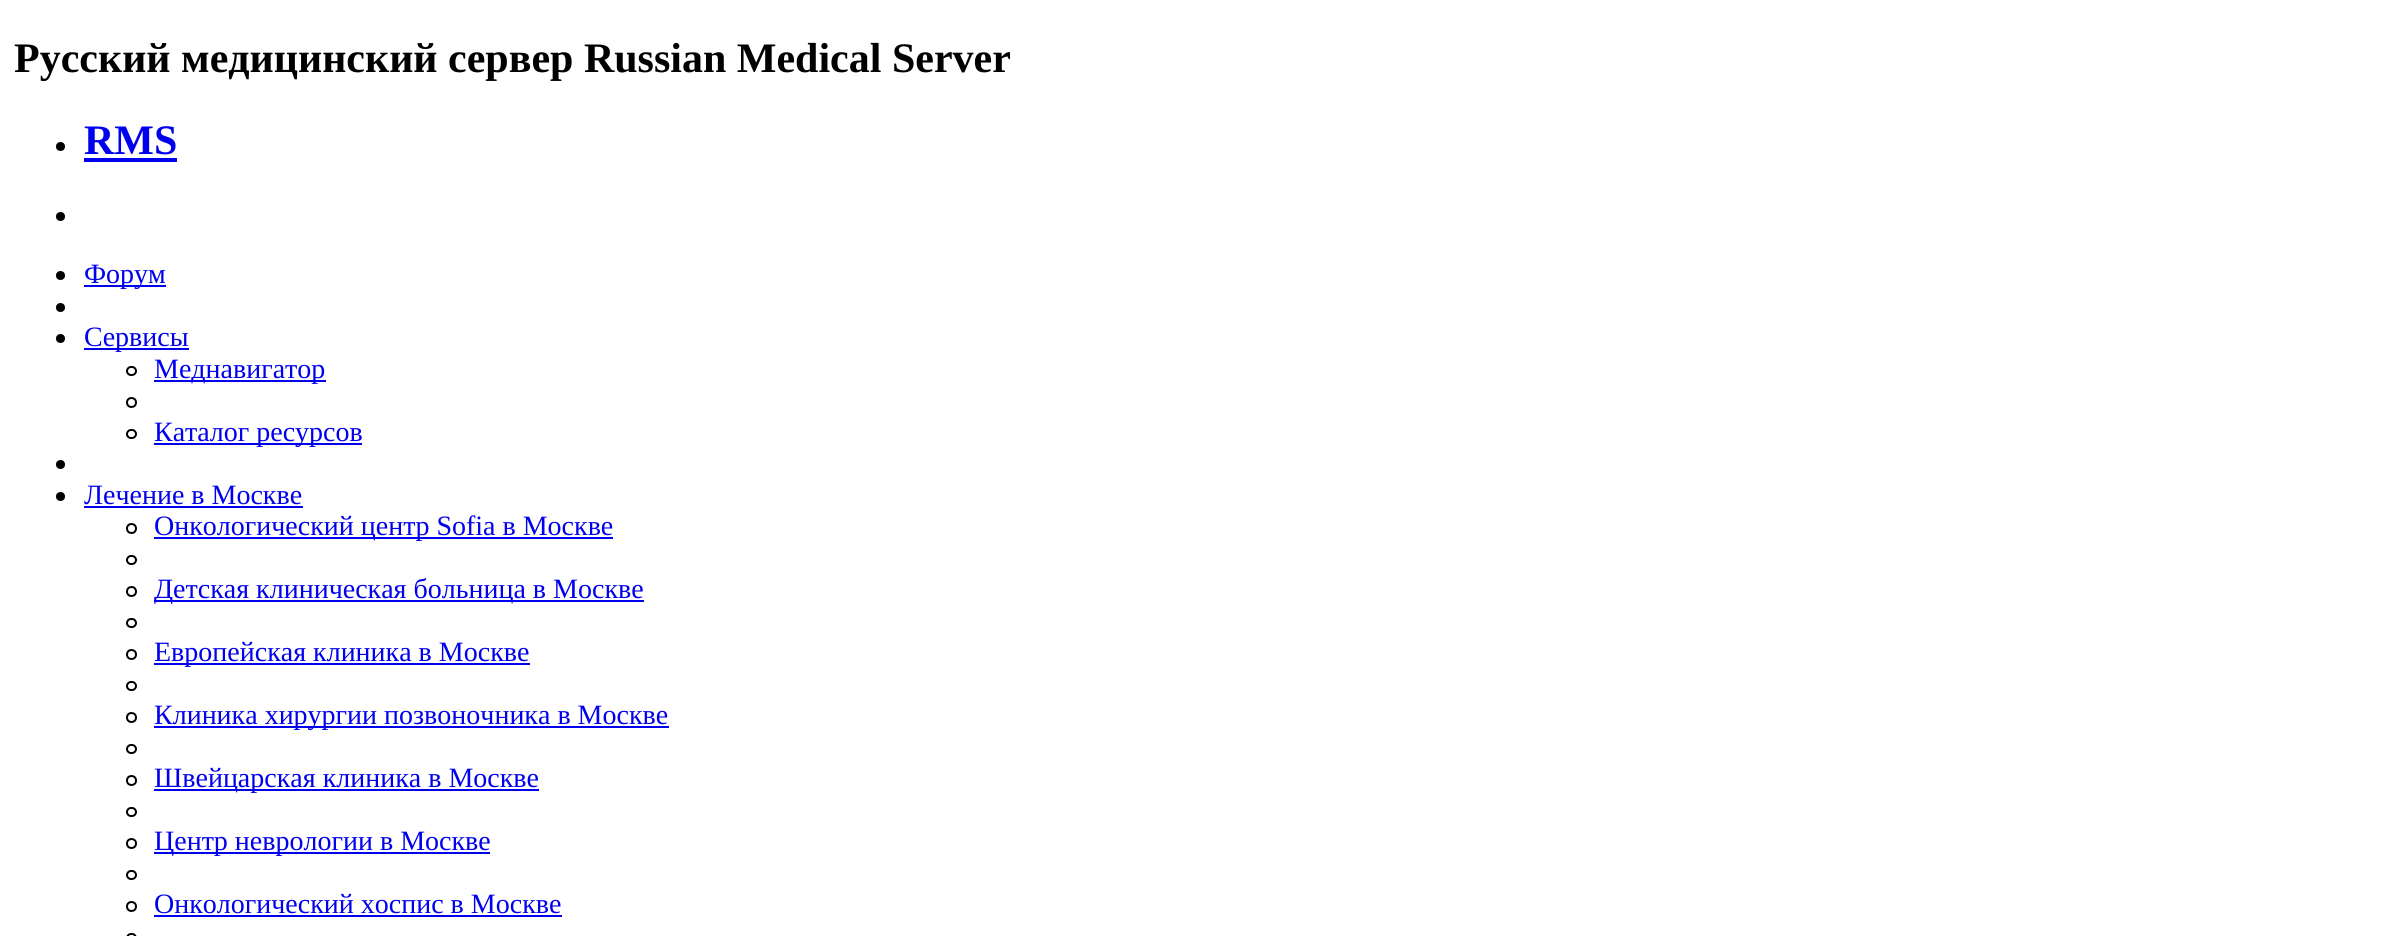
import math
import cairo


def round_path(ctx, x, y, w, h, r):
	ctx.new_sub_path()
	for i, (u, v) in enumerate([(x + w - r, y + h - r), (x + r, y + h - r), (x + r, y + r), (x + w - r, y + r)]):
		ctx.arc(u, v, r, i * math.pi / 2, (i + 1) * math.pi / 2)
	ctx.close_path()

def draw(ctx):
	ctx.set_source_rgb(1, 1, 1)
	ctx.paint()
	ctx.select_font_face('Liberation Serif', cairo.FONT_SLANT_NORMAL, cairo.FONT_WEIGHT_BOLD)
	ctx.set_font_size(42)
	ctx.set_source_rgb(0, 0, 0)
	ctx.move_to(14, 72)
	ctx.show_text('Русский медицинский сервер Russian Medical Server')
	ctx.new_path()
	ctx.arc(60.5, 146.5, 4.5, 0, 2 * math.pi)
	ctx.fill()
	ctx.set_source_rgb(0, 0, 0.933)
	ctx.move_to(84, 154)
	ctx.show_text('RMS')
	ctx.rectangle(84, 158, 93, 4)
	ctx.fill()
	ctx.set_source_rgb(0, 0, 0)
	ctx.arc(60.5, 216.5, 4.5, 0, 2 * math.pi)
	ctx.fill()
	ctx.arc(60.5, 275.5, 4.5, 0, 2 * math.pi)
	ctx.fill()
	ctx.set_source_rgb(0, 0, 0.933)
	ctx.rectangle(84, 285, 82, 2)
	ctx.fill()
	ctx.select_font_face('Liberation Serif')
	ctx.set_font_size(28)
	ctx.move_to(84, 283)
	ctx.show_text('Форум')
	ctx.set_source_rgb(0, 0, 0)
	ctx.new_path()
	ctx.arc(60.5, 307.5, 4.5, 0, 2 * math.pi)
	ctx.fill()
	ctx.arc(60.5, 338.5, 4.5, 0, 2 * math.pi)
	ctx.fill()
	ctx.set_source_rgb(0, 0, 0.933)
	ctx.rectangle(84, 348, 105, 2)
	ctx.fill()
	ctx.move_to(84, 346)
	ctx.show_text('Сервисы')
	round_path(ctx, 127, 367, 9, 8, 4)
	ctx.set_source_rgb(0, 0, 0)
	ctx.stroke()
	ctx.set_source_rgb(0, 0, 0.933)
	ctx.rectangle(154, 380, 172, 2)
	ctx.fill()
	ctx.move_to(154, 378)
	ctx.show_text('Меднавигатор')
	ctx.new_path()
	ctx.arc(131.5, 402.5, 4.5, 0, 2 * math.pi)
	ctx.set_source_rgb(0, 0, 0)
	ctx.stroke()
	round_path(ctx, 127, 430, 9, 8, 4)
	ctx.stroke()
	ctx.set_source_rgb(0, 0, 0.933)
	ctx.rectangle(154, 443, 208, 2)
	ctx.fill()
	ctx.move_to(154, 441)
	ctx.show_text('Каталог ресурсов')
	ctx.set_source_rgb(0, 0, 0)
	ctx.new_path()
	ctx.arc(60.5, 464.5, 4.5, 0, 2 * math.pi)
	ctx.fill()
	ctx.arc(60.5, 496.5, 4.5, 0, 2 * math.pi)
	ctx.fill()
	ctx.set_source_rgb(0, 0, 0.933)
	ctx.move_to(84, 504)
	ctx.show_text('Лечение в Москве')
	ctx.rectangle(84, 506, 219, 2)
	ctx.fill()
	ctx.arc(131.5, 528.5, 4.5, 0, 2 * math.pi)
	ctx.set_source_rgb(0, 0, 0)
	ctx.stroke()
	ctx.set_source_rgb(0, 0, 0.933)
	ctx.rectangle(154, 537, 459, 2)
	ctx.fill()
	ctx.move_to(154, 535)
	ctx.show_text('Онкологический центр Sofia в Москве')
	round_path(ctx, 127, 556, 9, 8, 4)
	ctx.set_source_rgb(0, 0, 0)
	ctx.stroke()
	ctx.arc(131.5, 591.5, 4.5, 0, 2 * math.pi)
	ctx.stroke()
	ctx.set_source_rgb(0, 0, 0.933)
	ctx.rectangle(154, 600, 490, 2)
	ctx.fill()
	ctx.move_to(154, 598)
	ctx.show_text('Детская клиническая больница в Москве')
	round_path(ctx, 127, 619, 9, 8, 4)
	ctx.set_source_rgb(0, 0, 0)
	ctx.stroke()
	ctx.arc(131.5, 654.5, 4.5, 0, 2 * math.pi)
	ctx.stroke()
	ctx.set_source_rgb(0, 0, 0.933)
	ctx.rectangle(154, 663, 376, 2)
	ctx.fill()
	ctx.move_to(154, 661)
	ctx.show_text('Европейская клиника в Москве')
	round_path(ctx, 127, 682, 9, 8, 4)
	ctx.set_source_rgb(0, 0, 0)
	ctx.stroke()
	ctx.arc(131.5, 717.5, 4.5, 0, 2 * math.pi)
	ctx.stroke()
	ctx.set_source_rgb(0, 0, 0.933)
	ctx.rectangle(154, 726, 515, 2)
	ctx.fill()
	ctx.move_to(154, 724)
	ctx.show_text('Клиника хирургии позвоночника в Москве')
	round_path(ctx, 127, 745, 9, 8, 4)
	ctx.set_source_rgb(0, 0, 0)
	ctx.stroke()
	ctx.arc(131.5, 780.5, 4.5, 0, 2 * math.pi)
	ctx.stroke()
	ctx.set_source_rgb(0, 0, 0.933)
	ctx.rectangle(154, 789, 385, 2)
	ctx.fill()
	ctx.move_to(154, 787)
	ctx.show_text('Швейцарская клиника в Москве')
	round_path(ctx, 127, 808, 9, 8, 4)
	ctx.set_source_rgb(0, 0, 0)
	ctx.stroke()
	ctx.arc(131.5, 843.5, 4.5, 0, 2 * math.pi)
	ctx.stroke()
	ctx.set_source_rgb(0, 0, 0.933)
	ctx.rectangle(154, 852, 336, 2)
	ctx.fill()
	ctx.move_to(154, 850)
	ctx.show_text('Центр неврологии в Москве')
	round_path(ctx, 127, 871, 9, 8, 4)
	ctx.set_source_rgb(0, 0, 0)
	ctx.stroke()
	ctx.arc(131.5, 906.5, 4.5, 0, 2 * math.pi)
	ctx.stroke()
	ctx.set_source_rgb(0, 0, 0.933)
	ctx.move_to(154, 913)
	ctx.show_text('Онкологический хоспис в Москве')
	ctx.rectangle(154, 915, 408, 2)
	ctx.fill()
	round_path(ctx, 127, 934, 9, 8, 4)
	ctx.set_source_rgb(0, 0, 0)
	ctx.stroke()


surface = cairo.ImageSurface(cairo.FORMAT_RGB24, 2401, 936)
ctx = cairo.Context(surface)
options = cairo.FontOptions()
options.set_hint_metrics(cairo.HINT_METRICS_OFF)
options.set_hint_style(cairo.HINT_STYLE_NONE)
ctx.set_font_options(options)
ctx.set_miter_limit(4)
draw(ctx)
surface.write_to_png('image.png')
